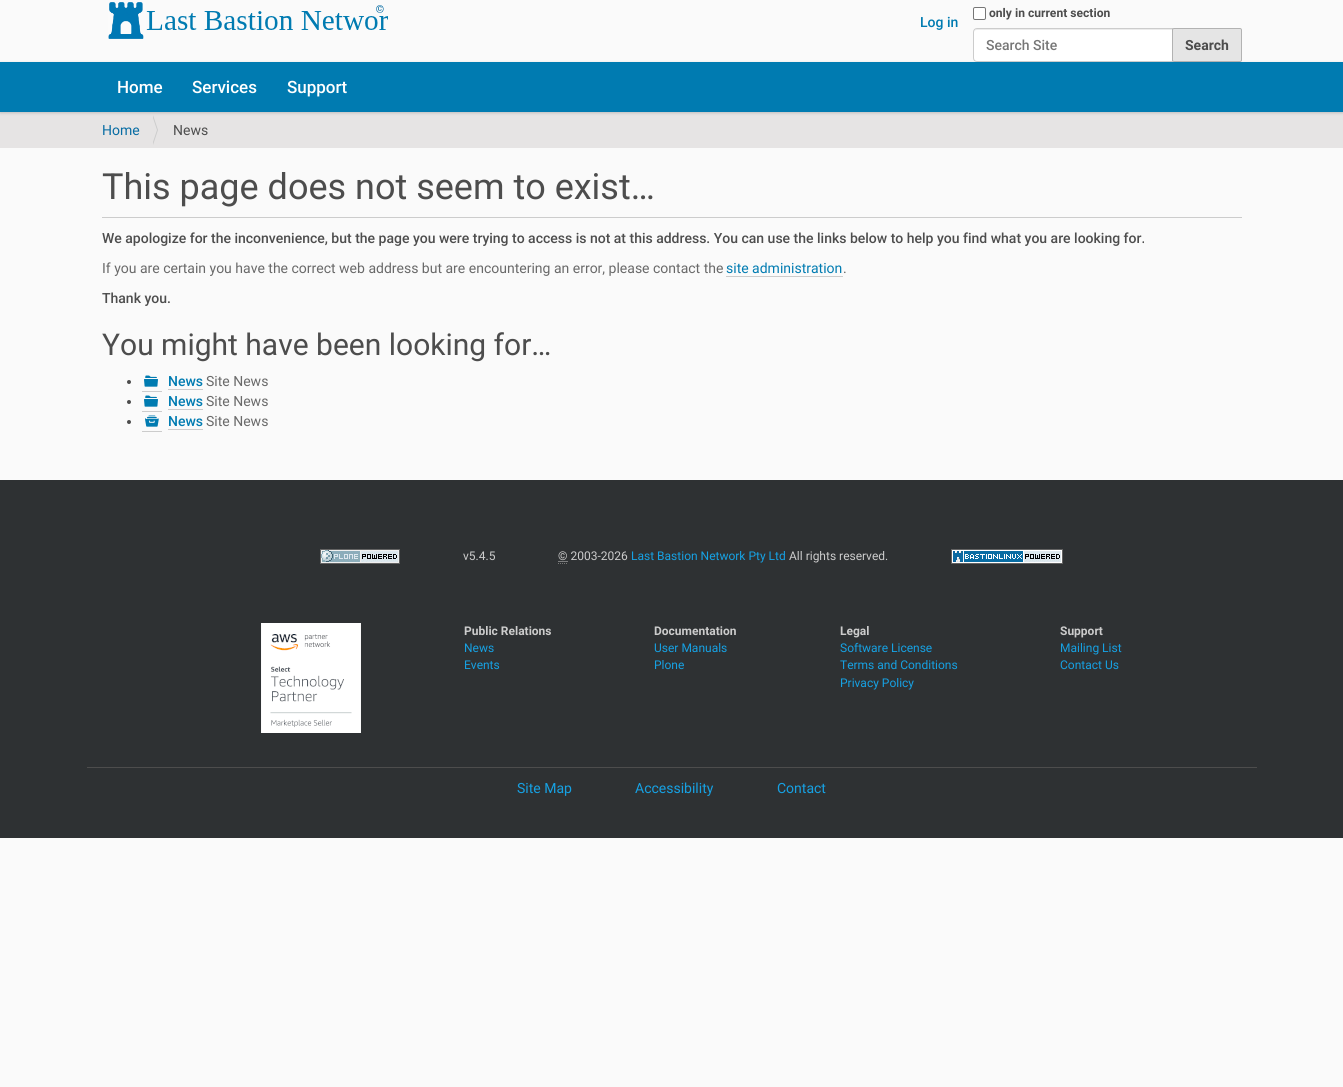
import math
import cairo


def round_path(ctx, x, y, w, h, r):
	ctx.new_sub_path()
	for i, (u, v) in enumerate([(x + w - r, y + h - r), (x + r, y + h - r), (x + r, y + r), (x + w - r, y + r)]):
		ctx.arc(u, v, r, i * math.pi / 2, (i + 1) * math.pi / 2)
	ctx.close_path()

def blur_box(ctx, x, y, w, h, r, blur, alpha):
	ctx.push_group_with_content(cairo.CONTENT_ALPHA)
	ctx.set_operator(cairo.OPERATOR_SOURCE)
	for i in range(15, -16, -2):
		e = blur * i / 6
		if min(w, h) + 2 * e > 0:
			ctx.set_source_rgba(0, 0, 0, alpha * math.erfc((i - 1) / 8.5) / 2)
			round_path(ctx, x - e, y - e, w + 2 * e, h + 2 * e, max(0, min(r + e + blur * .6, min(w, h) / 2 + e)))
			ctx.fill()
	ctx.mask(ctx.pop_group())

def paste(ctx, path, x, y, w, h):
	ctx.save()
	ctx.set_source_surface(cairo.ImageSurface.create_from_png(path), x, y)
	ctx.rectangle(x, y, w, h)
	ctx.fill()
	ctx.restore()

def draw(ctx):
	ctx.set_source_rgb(0.98, 0.98, 0.98)
	ctx.paint()
	paste(ctx, 'media/1.png', 108, 2, 280, 37)
	ctx.select_font_face('Roboto Medium')
	ctx.set_font_size(14)
	ctx.set_source_rgb(0, 0.482, 0.694)
	ctx.move_to(920, 27)
	ctx.show_text('Log in')
	ctx.set_source_rgb(1, 1, 1)
	round_path(ctx, 973.5, 7.5, 12, 12, 1.5)
	ctx.fill_preserve()
	ctx.set_source_rgb(0.463, 0.463, 0.463)
	ctx.set_line_width(1)
	ctx.stroke()
	ctx.select_font_face('Roboto', cairo.FONT_SLANT_NORMAL, cairo.FONT_WEIGHT_BOLD)
	ctx.set_font_size(12.1)
	ctx.set_source_rgb(0.302, 0.302, 0.302)
	ctx.move_to(989, 17)
	ctx.show_text('only in current section')
	ctx.set_source_rgb(0.902, 0.894, 0.894)
	ctx.rectangle(0, 112, 1343, 36)
	ctx.fill()
	ctx.set_source_rgb(0, 0, 0)
	blur_box(ctx, 0, 63, 1343, 50, 0, 1.5, 0.17)
	ctx.set_source_rgb(1, 1, 1)
	ctx.new_path()
	ctx.move_to(977, 28)
	ctx.line_to(1173, 28)
	ctx.line_to(1173, 62)
	ctx.line_to(977, 62)
	ctx.curve_to(975, 62, 973, 60, 973, 58)
	ctx.line_to(973, 32)
	ctx.curve_to(973, 30, 975, 28, 977, 28)
	ctx.close_path()
	ctx.fill()
	ctx.set_source_rgb(0.925, 0.925, 0.925)
	ctx.new_path()
	ctx.move_to(977, 30)
	ctx.line_to(1172, 30)
	ctx.line_to(1172, 29)
	ctx.line_to(977, 29)
	ctx.curve_to(975, 29, 974, 31, 974, 33)
	ctx.curve_to(974, 31, 975, 30, 977, 30)
	ctx.close_path()
	ctx.fill()
	ctx.new_path()
	ctx.move_to(977, 28.5)
	ctx.line_to(1172.5, 28.5)
	ctx.line_to(1172.5, 61.5)
	ctx.line_to(977, 61.5)
	ctx.curve_to(975, 61.5, 973.5, 60, 973.5, 58)
	ctx.line_to(973.5, 32)
	ctx.curve_to(973.5, 30, 975, 28.5, 977, 28.5)
	ctx.close_path()
	ctx.set_source_rgb(0.8, 0.8, 0.8)
	ctx.stroke()
	ctx.select_font_face('Roboto Medium')
	ctx.set_font_size(14)
	ctx.set_source_rgb(0.467, 0.467, 0.467)
	ctx.move_to(986, 50)
	ctx.show_text('Search Site')
	ctx.set_source_rgb(0.898, 0.898, 0.898)
	round_path(ctx, 1172.5, 28.5, 69, 33, 1.5)
	ctx.fill_preserve()
	ctx.set_source_rgb(0.698, 0.698, 0.698)
	ctx.stroke()
	ctx.select_font_face('Roboto', cairo.FONT_SLANT_NORMAL, cairo.FONT_WEIGHT_BOLD)
	ctx.set_source_rgb(0.302, 0.302, 0.302)
	ctx.move_to(1185, 50)
	ctx.show_text('Search')
	ctx.set_source_rgb(0, 0.482, 0.694)
	ctx.rectangle(0, 62, 1343, 50)
	ctx.fill()
	ctx.select_font_face('Roboto Medium')
	ctx.set_font_size(17)
	ctx.set_source_rgb(1, 1, 1)
	for x, y, s in [
		(117, 93, 'Home'),
		(192, 93, 'Services'),
		(287, 93, 'Support'),
	]:
		ctx.move_to(x, y)
		ctx.show_text(s)
	ctx.select_font_face('Roboto')
	ctx.set_font_size(14)
	ctx.set_source_rgb(0.031, 0.424, 0.639)
	ctx.move_to(102, 135)
	ctx.show_text('Home')
	ctx.set_source_rgb(0.8, 0.8, 0.8)
	ctx.new_path()
	ctx.move_to(153, 145)
	ctx.line_to(153, 115)
	ctx.line_to(158, 130)
	ctx.close_path()
	ctx.fill()
	ctx.set_source_rgb(0.902, 0.894, 0.894)
	ctx.new_path()
	ctx.move_to(152, 145)
	ctx.line_to(152, 115)
	ctx.line_to(157, 130)
	ctx.close_path()
	ctx.fill()
	ctx.set_source_rgb(0.302, 0.302, 0.302)
	ctx.move_to(173, 135)
	ctx.show_text('News')
	ctx.set_source_rgb(0.8, 0.8, 0.8)
	ctx.rectangle(102, 217, 1140, 1)
	ctx.fill()
	ctx.set_font_size(36)
	ctx.set_source_rgb(0.302, 0.302, 0.302)
	ctx.move_to(102, 199)
	ctx.show_text('This page does not seem to exist…')
	ctx.select_font_face('Roboto Medium')
	ctx.set_font_size(14)
	ctx.move_to(102, 243)
	ctx.show_text('We apologize for the inconvenience, but the page you were trying to access is not at this address. You can use the links below to help you find what you are looking for.')
	ctx.select_font_face('Roboto')
	ctx.set_source_rgb(0.412, 0.412, 0.412)
	ctx.move_to(102, 273)
	ctx.show_text('If you are certain you have the correct web address but are encountering an error, please contact the')
	ctx.set_source_rgb(0, 0.482, 0.694)
	ctx.move_to(726, 273)
	ctx.show_text('site administration')
	ctx.set_source_rgb(0.8, 0.8, 0.8)
	ctx.rectangle(726, 276, 117, 1)
	ctx.fill()
	ctx.set_source_rgb(0.412, 0.412, 0.412)
	ctx.move_to(843, 273)
	ctx.show_text('.')
	ctx.select_font_face('Roboto Medium')
	ctx.set_source_rgb(0.302, 0.302, 0.302)
	ctx.move_to(102, 303)
	ctx.show_text('Thank you.')
	ctx.select_font_face('Roboto')
	ctx.set_font_size(30)
	ctx.move_to(102, 355)
	ctx.show_text('You might have been looking for…')
	ctx.new_path()
	ctx.arc(129, 382, 2, 0, 2 * math.pi)
	ctx.fill()
	ctx.set_source_rgb(0.8, 0.8, 0.8)
	ctx.rectangle(142, 391, 20, 1)
	ctx.fill()
	ctx.rectangle(168, 389, 35, 1)
	ctx.fill()
	paste(ctx, 'media/2.png', 144, 375, 14, 12)
	ctx.select_font_face('Roboto Medium')
	ctx.set_font_size(14)
	ctx.set_source_rgb(0, 0.482, 0.694)
	ctx.move_to(168, 386)
	ctx.show_text('News')
	ctx.select_font_face('Roboto')
	ctx.set_source_rgb(0.412, 0.412, 0.412)
	ctx.move_to(206, 386)
	ctx.show_text('Site News')
	ctx.set_source_rgb(0.302, 0.302, 0.302)
	ctx.new_path()
	ctx.arc(129, 402, 2, 0, 2 * math.pi)
	ctx.fill()
	ctx.set_source_rgb(0.8, 0.8, 0.8)
	ctx.rectangle(142, 411, 20, 1)
	ctx.fill()
	ctx.rectangle(168, 409, 35, 1)
	ctx.fill()
	paste(ctx, 'media/2.png', 144, 395, 14, 12)
	ctx.select_font_face('Roboto Medium')
	ctx.set_source_rgb(0, 0.482, 0.694)
	ctx.move_to(168, 406)
	ctx.show_text('News')
	ctx.select_font_face('Roboto')
	ctx.set_source_rgb(0.412, 0.412, 0.412)
	ctx.move_to(206, 406)
	ctx.show_text('Site News')
	ctx.set_source_rgb(0.302, 0.302, 0.302)
	ctx.new_path()
	ctx.arc(129, 422, 2, 0, 2 * math.pi)
	ctx.fill()
	ctx.set_source_rgb(0.8, 0.8, 0.8)
	ctx.rectangle(142, 431, 20, 1)
	ctx.fill()
	ctx.rectangle(168, 429, 35, 1)
	ctx.fill()
	paste(ctx, 'media/3.png', 145, 415, 14, 12)
	ctx.select_font_face('Roboto Medium')
	ctx.set_source_rgb(0, 0.482, 0.694)
	ctx.move_to(168, 426)
	ctx.show_text('News')
	ctx.select_font_face('Roboto')
	ctx.set_source_rgb(0.412, 0.412, 0.412)
	ctx.move_to(206, 426)
	ctx.show_text('Site News')
	ctx.set_source_rgb(0.18, 0.192, 0.2)
	ctx.rectangle(0, 480, 1343, 358)
	ctx.fill()
	paste(ctx, 'media/4.png', 320, 549, 80, 15)
	ctx.set_font_size(12)
	ctx.set_source_rgb(0.8, 0.8, 0.8)
	ctx.move_to(463, 560)
	ctx.show_text('v5.4.5')
	ctx.move_to(558, 560)
	ctx.show_text('© 2003-2026')
	ctx.new_path()
	ctx.move_to(558, 563.5)
	ctx.line_to(568, 563.5)
	ctx.set_source_rgb(0.467, 0.467, 0.467)
	ctx.set_dash([1, 1])
	ctx.stroke()
	ctx.new_path()
	ctx.move_to(558.5, 561.5)
	ctx.line_to(568, 561.5)
	ctx.set_source_rgb(0.8, 0.8, 0.8)
	ctx.stroke()
	ctx.set_source_rgb(0.086, 0.631, 0.89)
	ctx.move_to(631, 560)
	ctx.show_text('Last Bastion Network Pty Ltd')
	ctx.set_source_rgb(0.8, 0.8, 0.8)
	ctx.move_to(789, 560)
	ctx.show_text('All rights reserved.')
	paste(ctx, 'media/5.png', 951, 549, 112, 15)
	paste(ctx, 'media/6.png', 261, 623, 100, 110)
	ctx.select_font_face('Roboto', cairo.FONT_SLANT_NORMAL, cairo.FONT_WEIGHT_BOLD)
	ctx.move_to(464, 635)
	ctx.show_text('Public Relations')
	ctx.select_font_face('Roboto')
	ctx.set_source_rgb(0.086, 0.631, 0.89)
	ctx.move_to(464, 652)
	ctx.show_text('News')
	ctx.move_to(464, 669)
	ctx.show_text('Events')
	ctx.select_font_face('Roboto', cairo.FONT_SLANT_NORMAL, cairo.FONT_WEIGHT_BOLD)
	ctx.set_source_rgb(0.8, 0.8, 0.8)
	ctx.move_to(654, 635)
	ctx.show_text('Documentation')
	ctx.select_font_face('Roboto')
	ctx.set_source_rgb(0.086, 0.631, 0.89)
	ctx.move_to(654, 652)
	ctx.show_text('User Manuals')
	ctx.move_to(654, 669)
	ctx.show_text('Plone')
	ctx.select_font_face('Roboto', cairo.FONT_SLANT_NORMAL, cairo.FONT_WEIGHT_BOLD)
	ctx.set_source_rgb(0.8, 0.8, 0.8)
	ctx.move_to(840, 635)
	ctx.show_text('Legal')
	ctx.select_font_face('Roboto')
	ctx.set_source_rgb(0.086, 0.631, 0.89)
	for x, y, s in [
		(840, 652, 'Software License'),
		(840, 669, 'Terms and Conditions'),
		(840, 687, 'Privacy Policy'),
	]:
		ctx.move_to(x, y)
		ctx.show_text(s)
	ctx.select_font_face('Roboto', cairo.FONT_SLANT_NORMAL, cairo.FONT_WEIGHT_BOLD)
	ctx.set_source_rgb(0.8, 0.8, 0.8)
	ctx.move_to(1060, 635)
	ctx.show_text('Support')
	ctx.select_font_face('Roboto')
	ctx.set_source_rgb(0.086, 0.631, 0.89)
	ctx.move_to(1060, 652)
	ctx.show_text('Mailing List')
	ctx.move_to(1060, 669)
	ctx.show_text('Contact Us')
	ctx.set_source_rgb(0.302, 0.302, 0.302)
	ctx.rectangle(87, 767, 1170, 1)
	ctx.fill()
	ctx.set_font_size(14)
	ctx.set_source_rgb(0.086, 0.631, 0.89)
	for x, y, s in [
		(517, 793, 'Site Map'),
		(635, 793, 'Accessibility'),
		(777, 793, 'Contact'),
	]:
		ctx.move_to(x, y)
		ctx.show_text(s)


surface = cairo.ImageSurface(cairo.FORMAT_RGB24, 1343, 1087)
ctx = cairo.Context(surface)
options = cairo.FontOptions()
options.set_hint_metrics(cairo.HINT_METRICS_OFF)
options.set_hint_style(cairo.HINT_STYLE_NONE)
ctx.set_font_options(options)
ctx.set_miter_limit(4)
draw(ctx)
surface.write_to_png('image.png')
